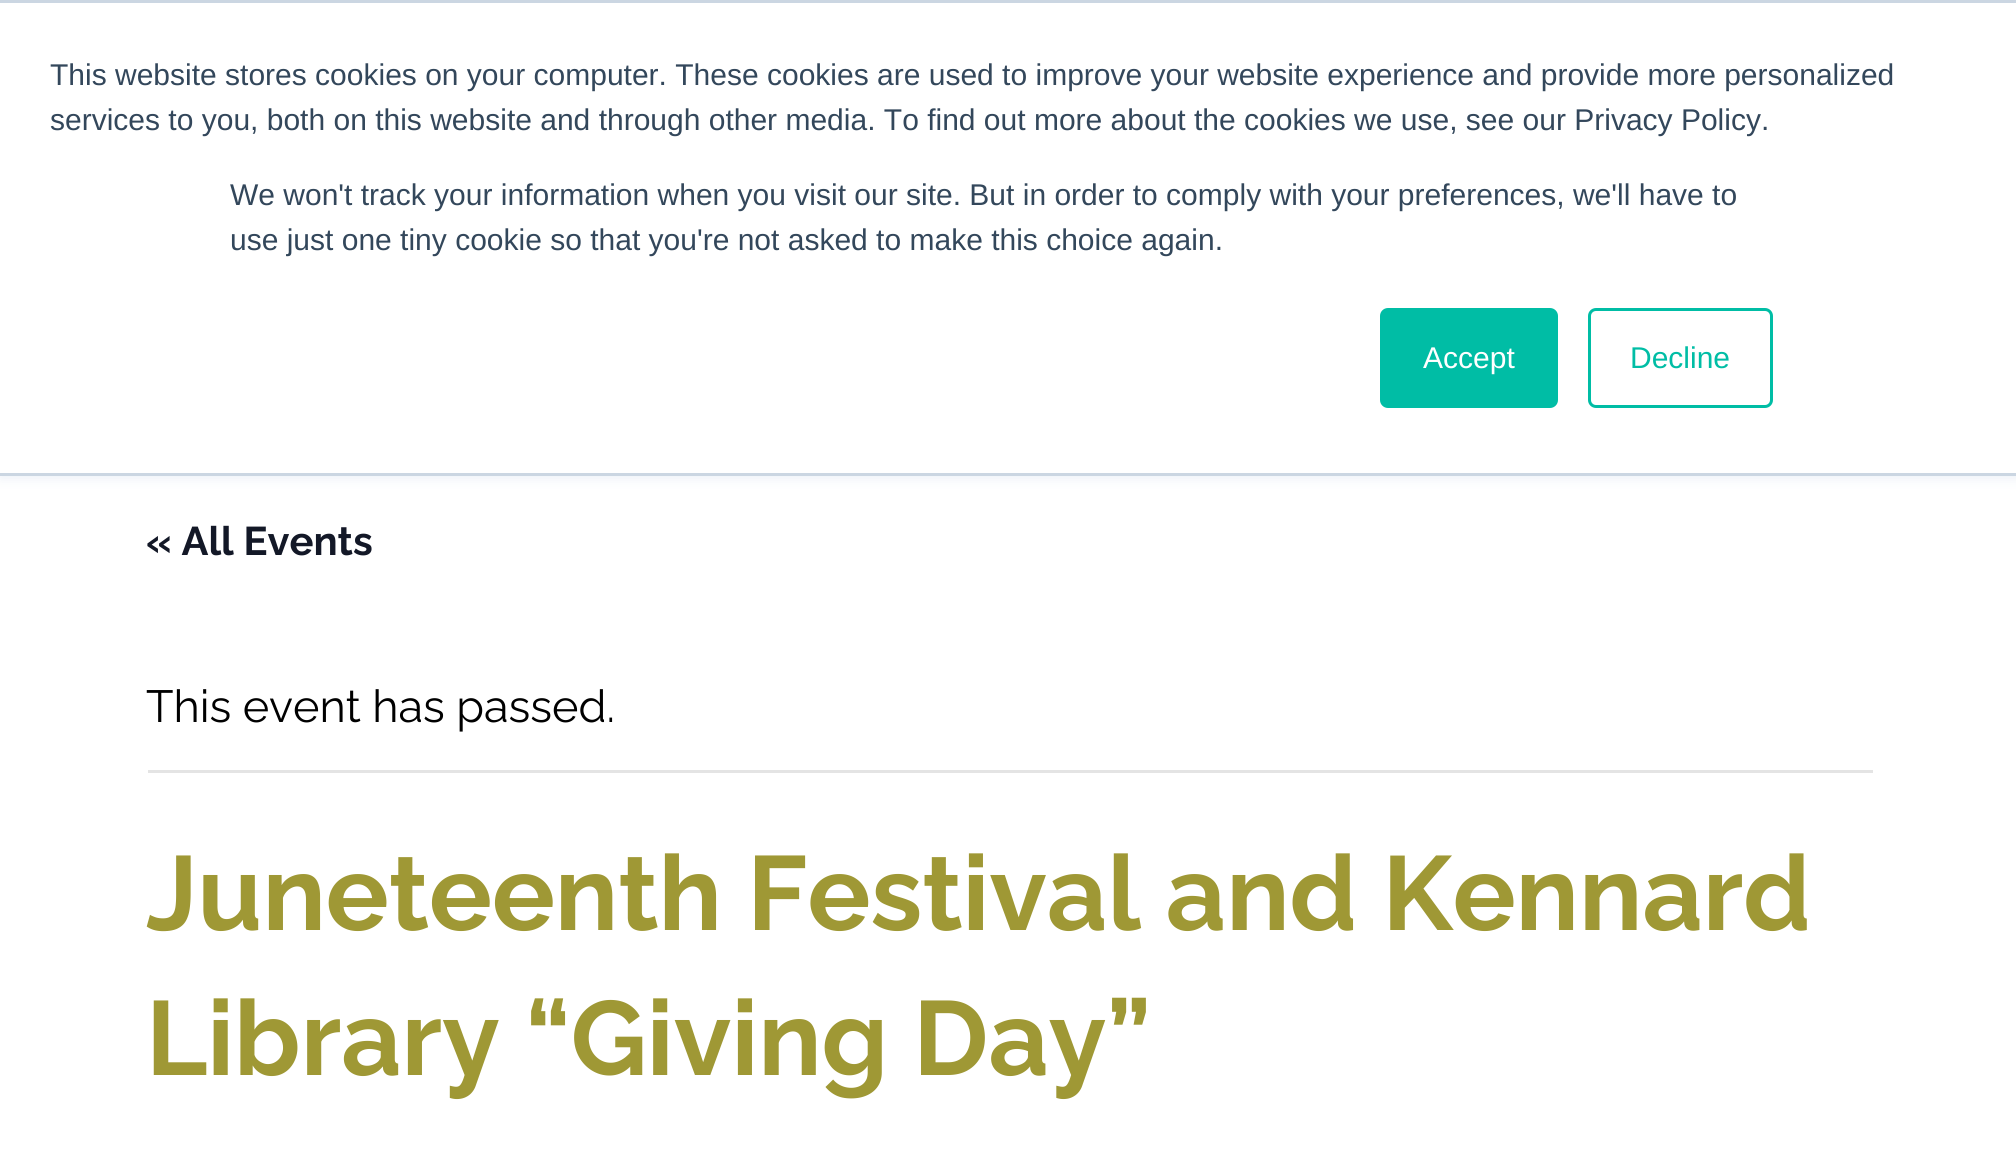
import math
import cairo


def round_path(ctx, x, y, w, h, r):
	ctx.new_sub_path()
	for i, (u, v) in enumerate([(x + w - r, y + h - r), (x + r, y + h - r), (x + r, y + r), (x + w - r, y + r)]):
		ctx.arc(u, v, r, i * math.pi / 2, (i + 1) * math.pi / 2)
	ctx.close_path()

def blur_box(ctx, x, y, w, h, r, blur, alpha):
	ctx.push_group_with_content(cairo.CONTENT_ALPHA)
	ctx.set_operator(cairo.OPERATOR_SOURCE)
	for i in range(15, -16, -2):
		e = blur * i / 6
		if min(w, h) + 2 * e > 0:
			ctx.set_source_rgba(0, 0, 0, alpha * math.erfc((i - 1) / 8.5) / 2)
			round_path(ctx, x - e, y - e, w + 2 * e, h + 2 * e, max(0, min(r + e + blur * .6, min(w, h) / 2 + e)))
			ctx.fill()
	ctx.mask(ctx.pop_group())

def draw(ctx):
	ctx.set_source_rgb(1, 1, 1)
	ctx.paint()
	ctx.set_source_rgb(0.918, 0.941, 0.965)
	blur_box(ctx, 0, 3, 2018, 475, 0, 6, 1)
	ctx.set_source_rgb(1, 1, 1)
	ctx.rectangle(0, 3, 2016, 470)
	ctx.fill()
	ctx.set_source_rgb(0.796, 0.839, 0.886)
	ctx.rectangle(0, 0, 2016, 3)
	ctx.rectangle(0, 473, 2016, 3)
	ctx.fill()
	ctx.select_font_face('Liberation Sans')
	ctx.set_font_size(30)
	ctx.set_source_rgb(0.2, 0.278, 0.357)
	for x, y, s in [
		(50, 85, 'This website stores cookies on your computer. These cookies are used to improve your website experience and provide more personalized'),
		(50, 130, 'services to you, both on this website and through other media. To find out more about the cookies we use, see our Privacy Policy.'),
		(230, 205, 'We won\'t track your information when you visit our site. But in order to comply with your preferences, we\'ll have to'),
		(230, 250, 'use just one tiny cookie so that you\'re not asked to make this choice again.'),
	]:
		ctx.move_to(x, y)
		ctx.show_text(s)
	ctx.set_source_rgb(0, 0.741, 0.647)
	round_path(ctx, 1381.5, 309.5, 175, 97, 6.5)
	ctx.fill_preserve()
	ctx.set_line_width(3)
	ctx.stroke()
	ctx.set_source_rgb(1, 1, 1)
	ctx.move_to(1423, 368)
	ctx.show_text('Accept')
	round_path(ctx, 1589.5, 309.5, 182, 97, 6.5)
	ctx.set_source_rgb(0, 0.741, 0.647)
	ctx.stroke()
	ctx.move_to(1630, 368)
	ctx.show_text('Decline')
	ctx.select_font_face('Raleway', cairo.FONT_SLANT_NORMAL, cairo.FONT_WEIGHT_BOLD)
	ctx.set_font_size(40)
	ctx.set_source_rgb(0.078, 0.094, 0.153)
	ctx.move_to(146, 555)
	ctx.show_text('« All Events')
	ctx.set_source_rgb(0.894, 0.894, 0.894)
	ctx.rectangle(148, 770, 1725, 3)
	ctx.fill()
	ctx.select_font_face('Raleway')
	ctx.set_font_size(45)
	ctx.set_source_rgb(0, 0, 0)
	ctx.move_to(146, 722)
	ctx.show_text('This event has passed.')
	ctx.select_font_face('Raleway', cairo.FONT_SLANT_NORMAL, cairo.FONT_WEIGHT_BOLD)
	ctx.set_font_size(105)
	ctx.set_source_rgb(0.624, 0.596, 0.208)
	ctx.move_to(146, 930)
	ctx.show_text('Juneteenth Festival and Kennard')
	ctx.move_to(146, 1075)
	ctx.show_text('Library “Giving Day”')


surface = cairo.ImageSurface(cairo.FORMAT_RGB24, 2016, 1167)
ctx = cairo.Context(surface)
options = cairo.FontOptions()
options.set_hint_metrics(cairo.HINT_METRICS_OFF)
options.set_hint_style(cairo.HINT_STYLE_NONE)
ctx.set_font_options(options)
ctx.set_miter_limit(4)
draw(ctx)
surface.write_to_png('image.png')
